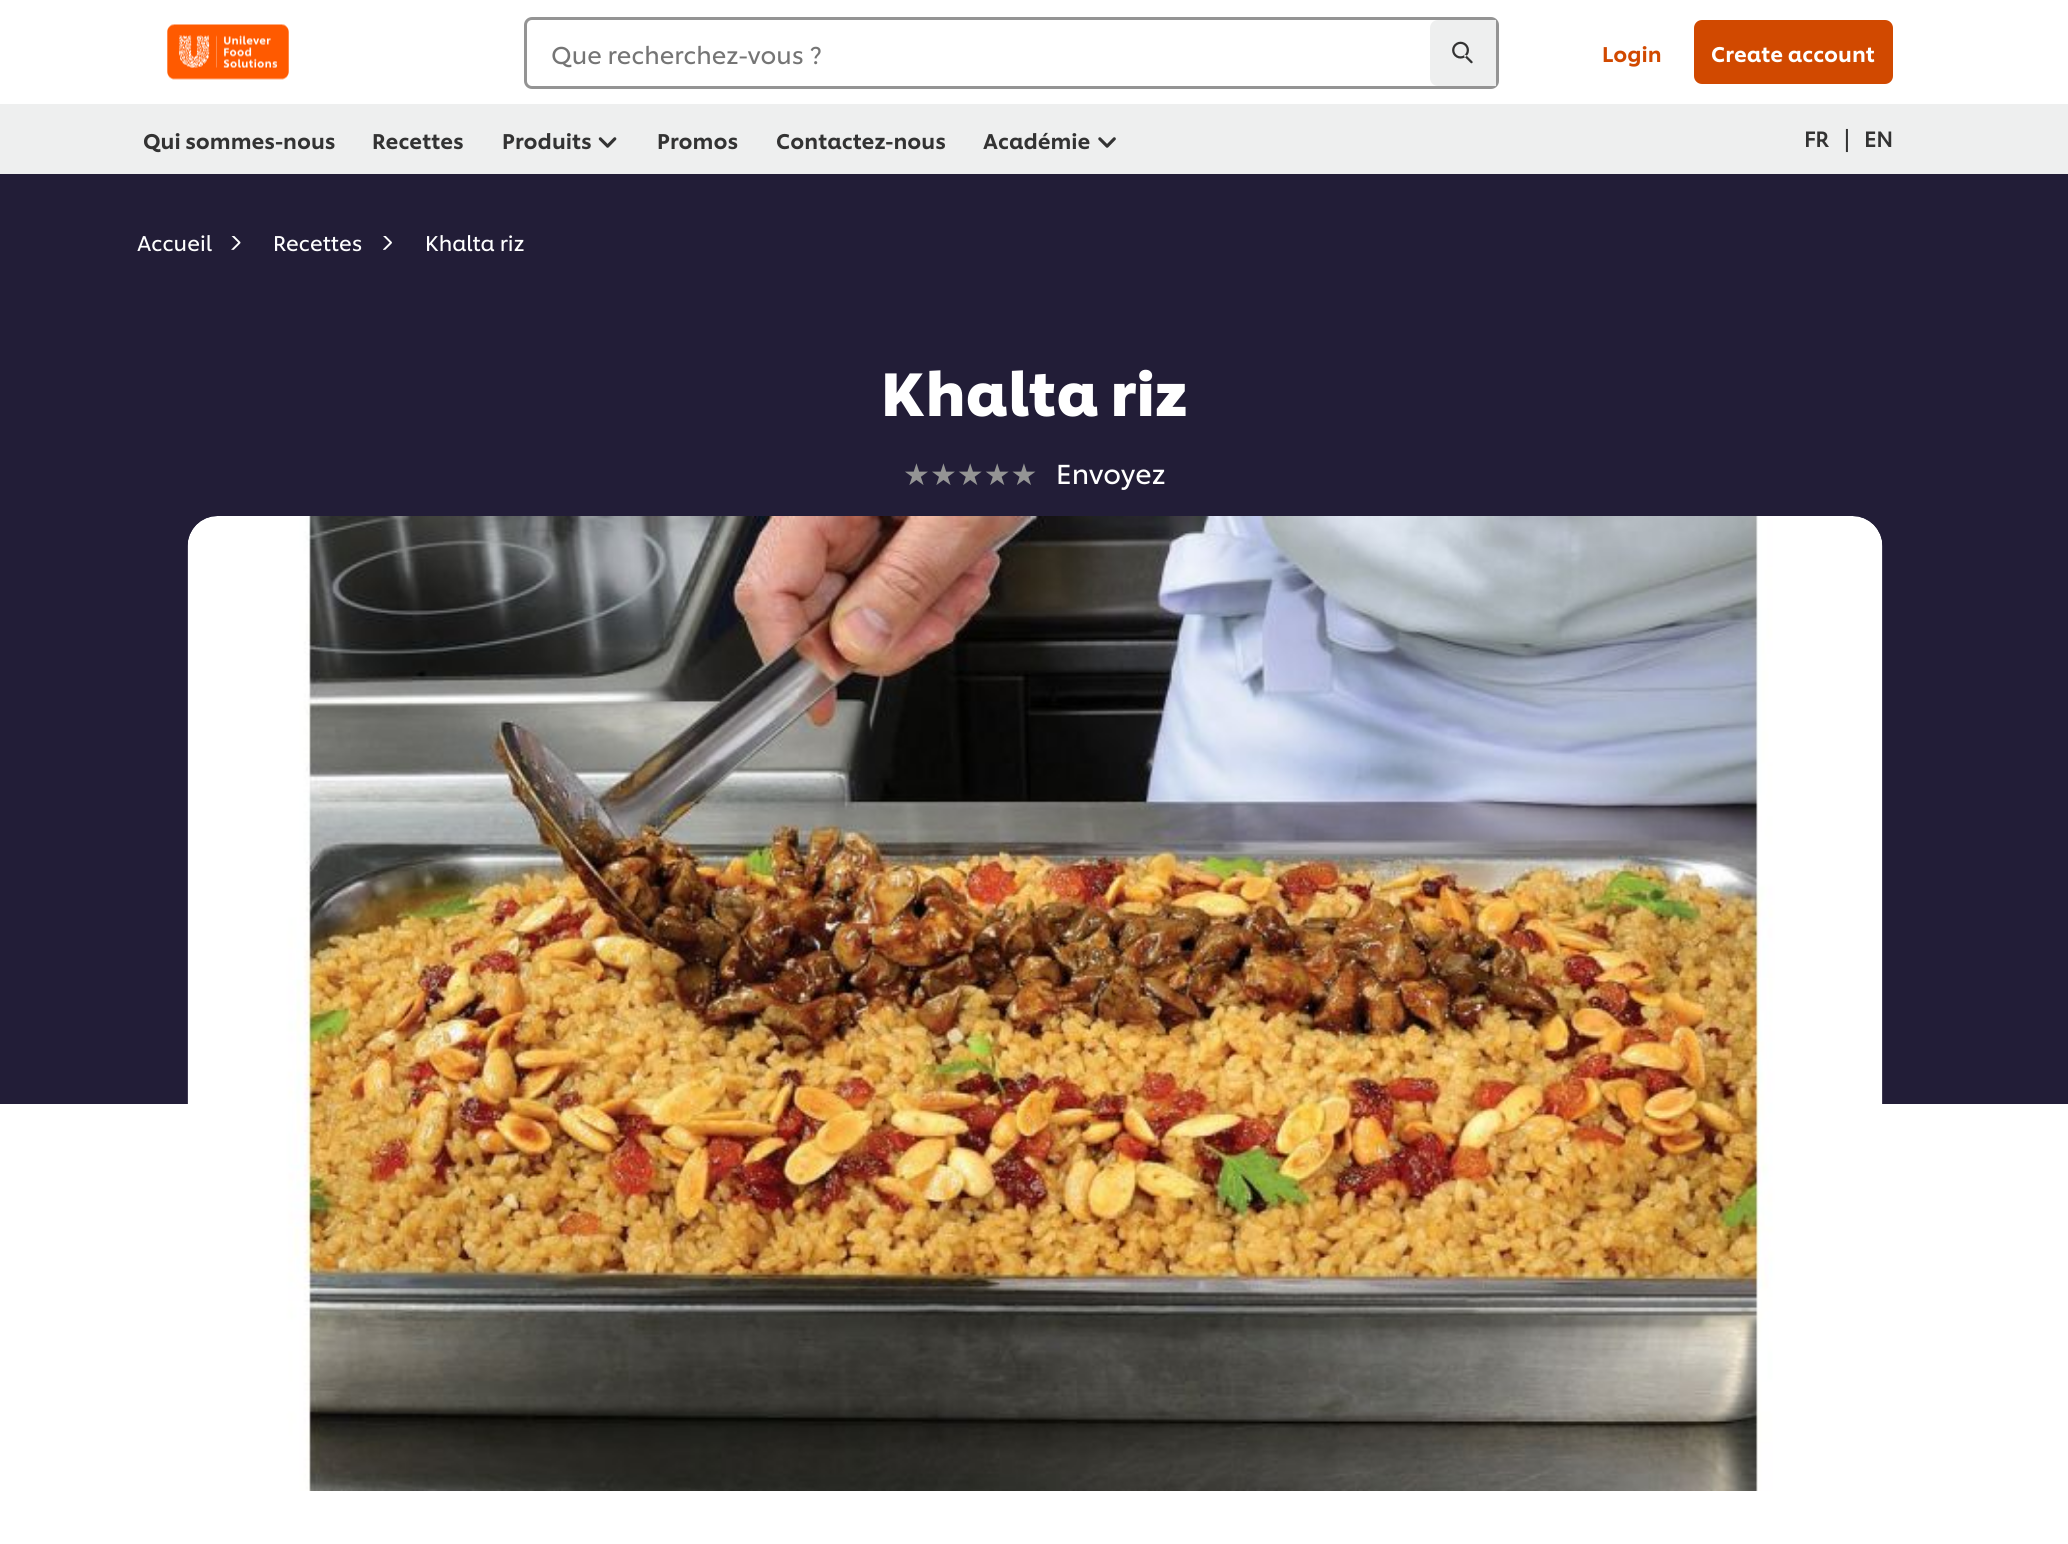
import math
import cairo


def round_path(ctx, x, y, w, h, r):
	ctx.new_sub_path()
	for i, (u, v) in enumerate([(x + w - r, y + h - r), (x + r, y + h - r), (x + r, y + r), (x + w - r, y + r)]):
		ctx.arc(u, v, r, i * math.pi / 2, (i + 1) * math.pi / 2)
	ctx.close_path()

def paste(ctx, path, x, y, w, h):
	ctx.save()
	ctx.set_source_surface(cairo.ImageSurface.create_from_png(path), x, y)
	ctx.rectangle(x, y, w, h)
	ctx.fill()
	ctx.restore()

def draw(ctx):
	ctx.set_source_rgb(1, 1, 1)
	ctx.paint()
	paste(ctx, 'media/1.png', 167, 24, 122, 56)
	round_path(ctx, 525.5, 18.5, 972, 69, 6.5)
	ctx.set_source_rgb(0.58, 0.58, 0.58)
	ctx.set_line_width(3)
	ctx.stroke()
	ctx.select_font_face('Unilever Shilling')
	ctx.set_font_size(24)
	ctx.set_source_rgb(0.459, 0.459, 0.459)
	ctx.move_to(551, 64)
	ctx.show_text('Que recherchez-vous ?')
	ctx.set_source_rgb(0.933, 0.937, 0.937)
	ctx.new_path()
	ctx.move_to(1438, 20)
	ctx.line_to(1496, 20)
	ctx.line_to(1496, 86)
	ctx.line_to(1438, 86)
	ctx.curve_to(1433.5, 86, 1430, 82.5, 1430, 78)
	ctx.line_to(1430, 28)
	ctx.curve_to(1430, 23.5, 1433.5, 20, 1438, 20)
	ctx.close_path()
	ctx.fill()
	paste(ctx, 'media/2.png', 1452, 41, 21, 23)
	ctx.select_font_face('Unilever Shilling Medium')
	ctx.set_font_size(21)
	ctx.set_source_rgb(0.82, 0.286, 0)
	ctx.move_to(1602, 62)
	ctx.show_text('Login')
	round_path(ctx, 1694, 20, 199, 64, 8)
	ctx.fill()
	ctx.set_source_rgb(1, 1, 1)
	ctx.move_to(1711, 62)
	ctx.show_text('Create account')
	ctx.set_source_rgb(0.933, 0.937, 0.937)
	ctx.rectangle(0, 104, 2068, 70)
	ctx.fill()
	ctx.set_source_rgb(0.2, 0.2, 0.2)
	for x, y, s in [
		(143, 149, 'Qui sommes-nous'),
		(372, 149, 'Recettes'),
		(502, 149, 'Produits'),
	]:
		ctx.move_to(x, y)
		ctx.show_text(s)
	paste(ctx, 'media/3.png', 598, 137, 19, 11)
	for x, y, s in [
		(657, 149, 'Promos'),
		(776, 149, 'Contactez-nous'),
		(983, 149, 'Académie'),
	]:
		ctx.move_to(x, y)
		ctx.show_text(s)
	paste(ctx, 'media/4.png', 1098, 137, 18, 11)
	ctx.select_font_face('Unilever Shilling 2', cairo.FONT_SLANT_NORMAL, cairo.FONT_WEIGHT_BOLD)
	ctx.move_to(1804, 147)
	ctx.show_text('FR')
	ctx.select_font_face('Unilever Shilling')
	ctx.set_font_size(24)
	ctx.move_to(1844, 147)
	ctx.show_text('|')
	ctx.select_font_face('Unilever Shilling 2', cairo.FONT_SLANT_NORMAL, cairo.FONT_WEIGHT_BOLD)
	ctx.set_font_size(21)
	ctx.move_to(1864, 147)
	ctx.show_text('EN')
	ctx.set_source_rgb(0.133, 0.114, 0.216)
	ctx.rectangle(0, 174, 2068, 342)
	ctx.fill()
	ctx.select_font_face('Unilever Shilling')
	ctx.set_source_rgb(1, 1, 1)
	ctx.move_to(137, 251)
	ctx.show_text('Accueil')
	paste(ctx, 'media/5.png', 231, 236, 10, 14)
	ctx.move_to(273, 251)
	ctx.show_text('Recettes')
	paste(ctx, 'media/6.png', 383, 236, 9, 14)
	ctx.move_to(425, 251)
	ctx.show_text('Khalta riz')
	ctx.select_font_face('Unilever Shilling', cairo.FONT_SLANT_NORMAL, cairo.FONT_WEIGHT_BOLD)
	ctx.set_font_size(60)
	ctx.move_to(881, 416)
	ctx.show_text('Khalta riz')
	ctx.select_font_face('DejaVu Sans')
	ctx.set_font_size(30)
	gradient = cairo.LinearGradient(903, 472, 1038, 472)
	gradient.add_color_stop_rgba(0, 1, 0.353, 0, 1)
	gradient.add_color_stop_rgba(0, 0.58, 0.58, 0.58, 1)
	ctx.set_source(gradient)
	ctx.move_to(903, 485)
	ctx.show_text('★★★★★')
	ctx.select_font_face('Unilever Shilling')
	ctx.set_font_size(27)
	ctx.set_source_rgb(1, 1, 1)
	ctx.move_to(1056, 484)
	ctx.show_text('Envoyez')
	ctx.set_source_rgb(0.133, 0.114, 0.216)
	ctx.rectangle(0, 516, 2068, 588)
	ctx.fill()
	paste(ctx, 'media/7.png', 187, 516, 1696, 975)


surface = cairo.ImageSurface(cairo.FORMAT_RGB24, 2068, 1544)
ctx = cairo.Context(surface)
options = cairo.FontOptions()
options.set_hint_metrics(cairo.HINT_METRICS_OFF)
options.set_hint_style(cairo.HINT_STYLE_NONE)
ctx.set_font_options(options)
ctx.set_miter_limit(4)
draw(ctx)
surface.write_to_png('image.png')
